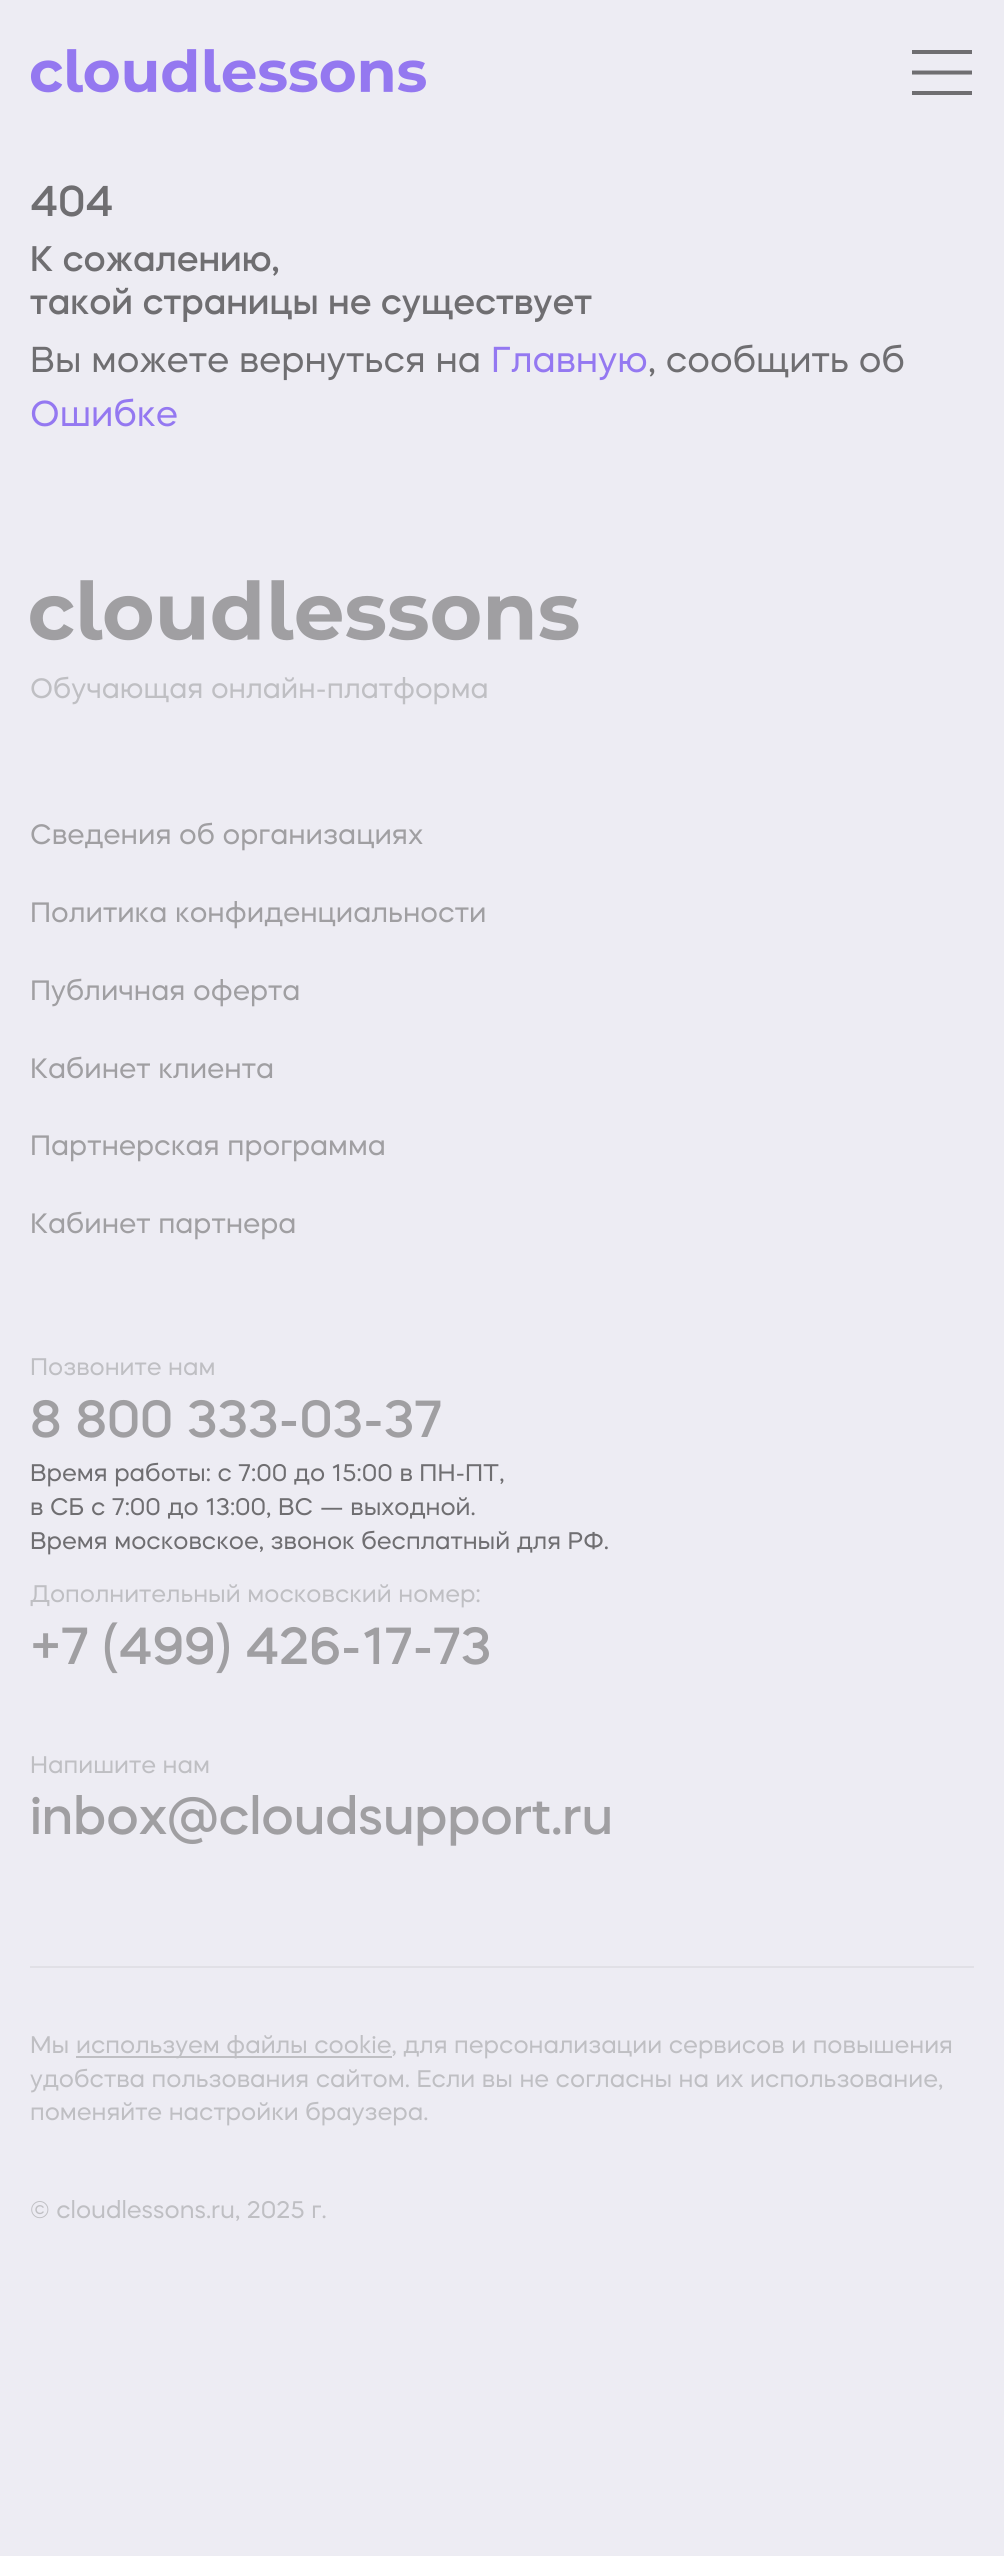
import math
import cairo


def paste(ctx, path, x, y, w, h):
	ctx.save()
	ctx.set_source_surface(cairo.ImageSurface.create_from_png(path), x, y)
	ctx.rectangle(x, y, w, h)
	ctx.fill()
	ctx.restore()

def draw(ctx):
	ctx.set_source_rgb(0.929, 0.925, 0.953)
	ctx.paint()
	paste(ctx, 'media/1.png', 30, 49, 396, 44)
	ctx.set_source_rgb(0.435, 0.431, 0.443)
	ctx.rectangle(912, 50, 60, 4)
	ctx.fill()
	ctx.new_path()
	ctx.move_to(914, 72.5)
	ctx.line_to(970, 72.5)
	ctx.set_line_width(4)
	ctx.set_line_cap(cairo.LINE_CAP_SQUARE)
	ctx.set_line_join(cairo.LINE_JOIN_ROUND)
	ctx.stroke()
	ctx.rectangle(912, 91, 60, 4)
	ctx.fill()
	ctx.select_font_face('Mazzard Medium')
	ctx.set_font_size(43)
	ctx.move_to(30, 216)
	ctx.show_text('404')
	ctx.set_font_size(35.5)
	ctx.move_to(30, 271)
	ctx.show_text('К сожалению,')
	ctx.move_to(30, 314)
	ctx.show_text('такой страницы не существует')
	ctx.select_font_face('Mazzard')
	ctx.set_font_size(36)
	ctx.move_to(30, 372)
	ctx.show_text('Вы можете вернуться на')
	ctx.set_source_rgb(0.58, 0.471, 0.945)
	ctx.move_to(491, 372)
	ctx.show_text('Главную')
	ctx.set_source_rgb(0.435, 0.431, 0.443)
	ctx.move_to(648, 372)
	ctx.show_text(', сообщить об')
	ctx.set_source_rgb(0.58, 0.471, 0.945)
	ctx.move_to(30, 426)
	ctx.show_text('Ошибке')
	paste(ctx, 'media/2.png', 30, 580, 549, 61)
	ctx.set_font_size(28)
	ctx.set_source_rgb(0.749, 0.749, 0.765)
	ctx.move_to(30, 698)
	ctx.show_text('Обучающая онлайн-платформа')
	ctx.set_source_rgb(0.627, 0.624, 0.635)
	for x, y, s in [
		(30, 844, 'Сведения об организациях'),
		(30, 922, 'Политика конфиденциальности'),
		(30, 1000, 'Публичная оферта'),
		(30, 1078, 'Кабинет клиента'),
		(30, 1155, 'Партнерская программа'),
		(30, 1233, 'Кабинет партнера'),
	]:
		ctx.move_to(x, y)
		ctx.show_text(s)
	ctx.set_font_size(24)
	ctx.set_source_rgb(0.749, 0.749, 0.765)
	ctx.move_to(30, 1375)
	ctx.show_text('Позвоните нам')
	ctx.select_font_face('Mazzard Medium')
	ctx.set_font_size(52)
	ctx.set_source_rgb(0.627, 0.624, 0.635)
	ctx.move_to(30, 1437)
	ctx.show_text('8 800 333-03-37')
	ctx.select_font_face('Mazzard')
	ctx.set_font_size(24)
	ctx.set_source_rgb(0.435, 0.431, 0.443)
	for x, y, s in [
		(30, 1481, 'Время работы: с 7:00 до 15:00 в ПН-ПТ,'),
		(30, 1515, 'в СБ с 7:00 до 13:00, ВС — выходной.'),
		(30, 1549, 'Время московское, звонок бесплатный для РФ.'),
	]:
		ctx.move_to(x, y)
		ctx.show_text(s)
	ctx.set_source_rgb(0.749, 0.749, 0.765)
	ctx.move_to(30, 1602)
	ctx.show_text('Дополнительный московский номер:')
	ctx.select_font_face('Mazzard Medium')
	ctx.set_font_size(52)
	ctx.set_source_rgb(0.627, 0.624, 0.635)
	ctx.move_to(30, 1664)
	ctx.show_text('+7 (499) 426-17-73')
	ctx.select_font_face('Mazzard')
	ctx.set_font_size(24)
	ctx.set_source_rgb(0.749, 0.749, 0.765)
	ctx.move_to(30, 1773)
	ctx.show_text('Напишите нам')
	ctx.select_font_face('Mazzard Medium')
	ctx.set_font_size(52)
	ctx.set_source_rgb(0.627, 0.624, 0.635)
	ctx.move_to(30, 1834)
	ctx.show_text('inbox@cloudsupport.ru')
	ctx.set_source_rgb(0.882, 0.878, 0.902)
	ctx.rectangle(30, 1966, 944, 2)
	ctx.fill()
	ctx.select_font_face('Mazzard')
	ctx.set_font_size(24)
	ctx.set_source_rgb(0.749, 0.749, 0.765)
	ctx.move_to(30, 2053)
	ctx.show_text('Мы')
	ctx.rectangle(76, 2056, 316, 2)
	ctx.fill()
	for x, y, s in [
		(76, 2053, 'используем файлы cookie, для персонализации сервисов и повышения'),
		(30, 2087, 'удобства пользования сайтом. Если вы не согласны на их использование,'),
		(30, 2120, 'поменяйте настройки браузера.'),
		(30, 2218, '© cloudlessons.ru, 2025 г.'),
	]:
		ctx.move_to(x, y)
		ctx.show_text(s)


surface = cairo.ImageSurface(cairo.FORMAT_RGB24, 1004, 2556)
ctx = cairo.Context(surface)
options = cairo.FontOptions()
options.set_hint_metrics(cairo.HINT_METRICS_OFF)
options.set_hint_style(cairo.HINT_STYLE_NONE)
ctx.set_font_options(options)
ctx.set_miter_limit(4)
draw(ctx)
surface.write_to_png('image.png')
